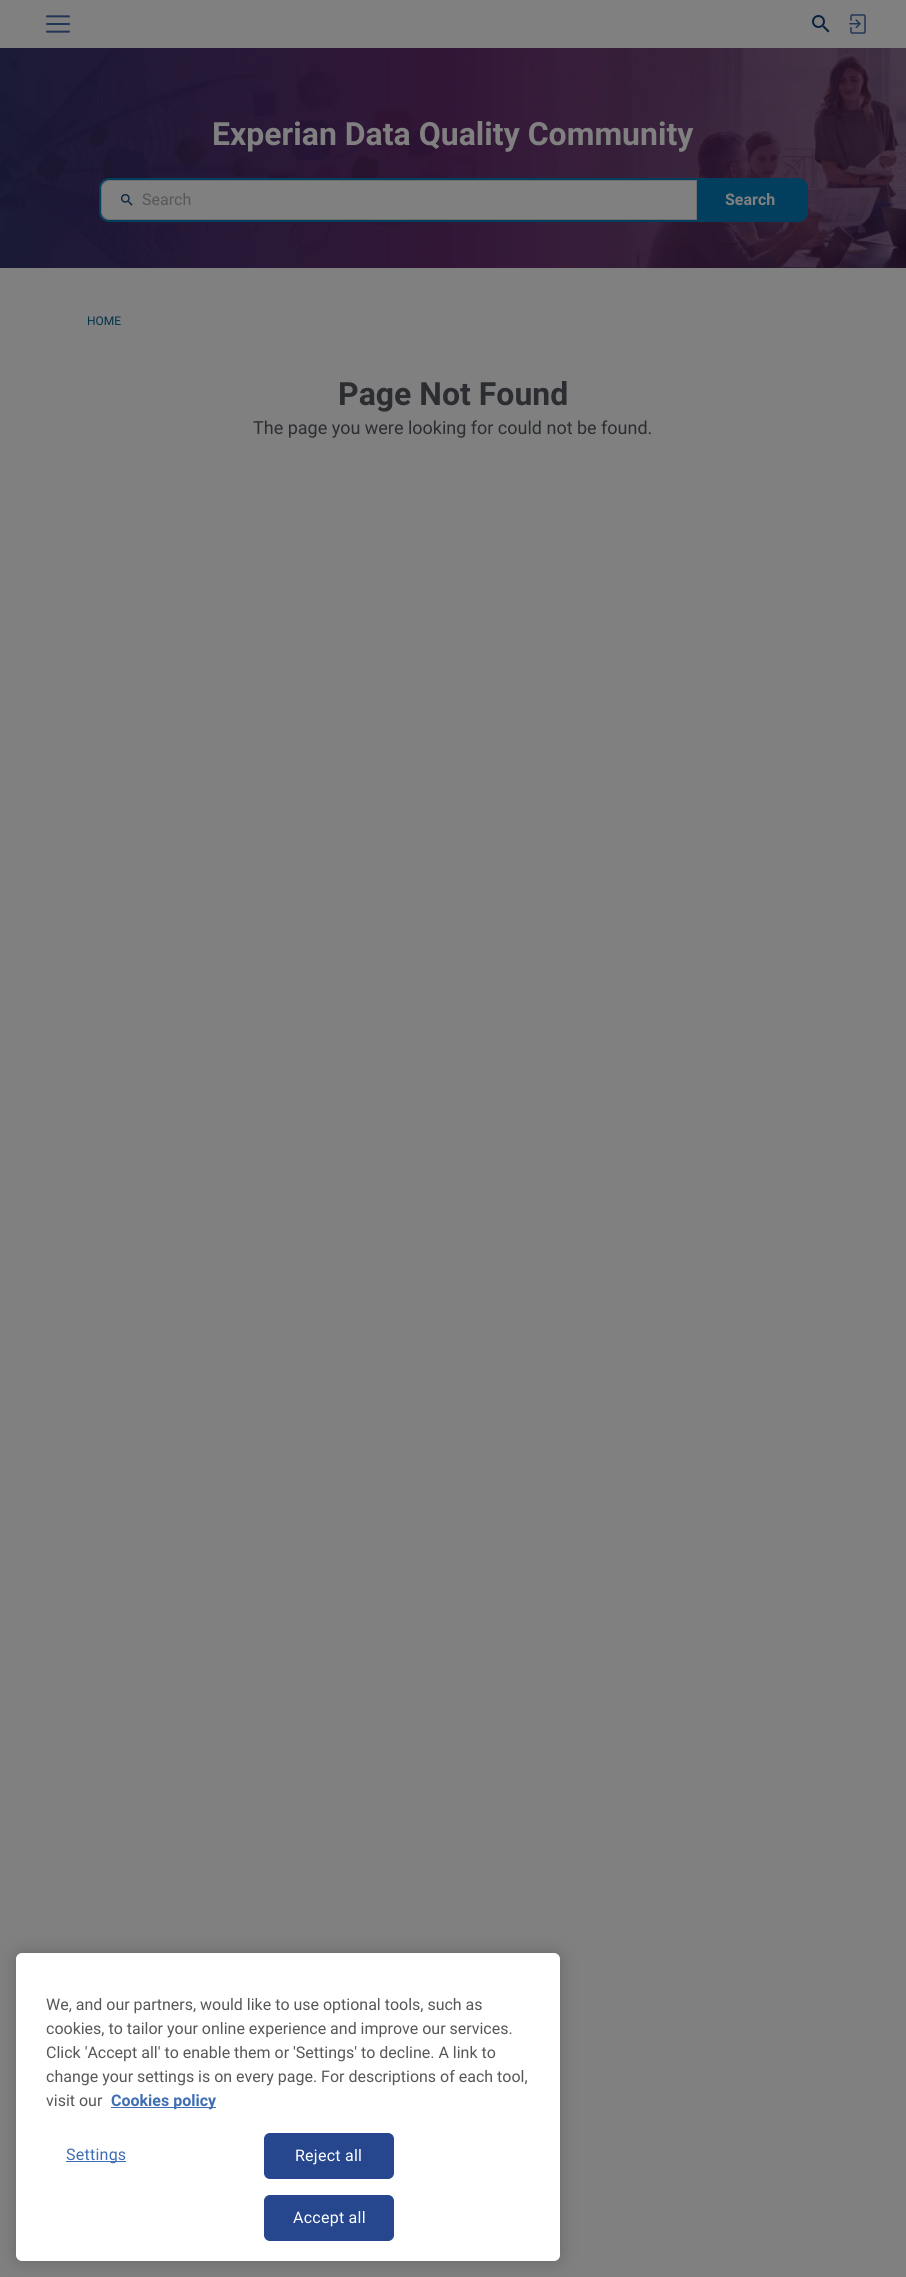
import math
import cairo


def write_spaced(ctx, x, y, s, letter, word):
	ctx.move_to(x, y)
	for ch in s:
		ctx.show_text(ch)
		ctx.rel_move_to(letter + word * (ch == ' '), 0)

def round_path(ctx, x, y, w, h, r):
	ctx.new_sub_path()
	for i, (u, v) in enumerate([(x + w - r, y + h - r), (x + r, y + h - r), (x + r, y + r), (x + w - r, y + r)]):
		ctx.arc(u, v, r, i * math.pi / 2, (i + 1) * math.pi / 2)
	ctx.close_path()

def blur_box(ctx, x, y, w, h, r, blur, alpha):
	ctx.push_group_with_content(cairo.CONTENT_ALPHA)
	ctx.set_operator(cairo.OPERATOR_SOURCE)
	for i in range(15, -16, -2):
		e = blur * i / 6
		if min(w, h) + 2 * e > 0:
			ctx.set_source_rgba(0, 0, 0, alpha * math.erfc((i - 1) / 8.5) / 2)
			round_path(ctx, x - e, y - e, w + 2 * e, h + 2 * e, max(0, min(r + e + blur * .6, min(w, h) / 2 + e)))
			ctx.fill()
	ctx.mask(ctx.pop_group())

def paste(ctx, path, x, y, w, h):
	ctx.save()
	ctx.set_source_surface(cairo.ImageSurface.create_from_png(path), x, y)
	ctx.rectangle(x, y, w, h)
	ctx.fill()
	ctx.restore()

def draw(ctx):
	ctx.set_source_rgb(0.502, 0.502, 0.502)
	ctx.paint()
	paste(ctx, 'media/1.png', 46, 15, 24, 18)
	paste(ctx, 'media/2.png', 812, 15, 18, 18)
	paste(ctx, 'media/3.png', 849, 14, 17, 20)
	paste(ctx, 'media/4.png', 0, 48, 906, 220)
	ctx.select_font_face('Roboto', cairo.FONT_SLANT_NORMAL, cairo.FONT_WEIGHT_BOLD)
	ctx.set_font_size(32)
	ctx.set_source_rgb(0.502, 0.502, 0.502)
	ctx.move_to(212, 145)
	ctx.show_text('Experian Data Quality Community')
	round_path(ctx, 100, 179, 707, 42, 9)
	ctx.set_source_rgb(0.008, 0.247, 0.369)
	ctx.stroke()
	ctx.new_path()
	ctx.move_to(696.5, 180.5)
	ctx.line_to(799, 180.5)
	ctx.curve_to(803, 180.5, 806.5, 184, 806.5, 188)
	ctx.line_to(806.5, 212)
	ctx.curve_to(806.5, 216, 803, 219.5, 799, 219.5)
	ctx.line_to(696.5, 219.5)
	ctx.close_path()
	ctx.fill_preserve()
	ctx.set_line_width(1)
	ctx.stroke()
	ctx.set_source_rgb(0.502, 0.502, 0.502)
	ctx.new_path()
	ctx.move_to(109, 180.5)
	ctx.line_to(696.5, 180.5)
	ctx.line_to(696.5, 219.5)
	ctx.line_to(109, 219.5)
	ctx.curve_to(105, 219.5, 101.5, 216, 101.5, 212)
	ctx.line_to(101.5, 188)
	ctx.curve_to(101.5, 184, 105, 180.5, 109, 180.5)
	ctx.close_path()
	ctx.fill_preserve()
	ctx.set_source_rgb(0.435, 0.435, 0.439)
	ctx.stroke()
	paste(ctx, 'media/5.png', 121, 194, 12, 12)
	ctx.select_font_face('Roboto')
	ctx.set_font_size(16)
	ctx.set_source_rgb(0.333, 0.341, 0.349)
	ctx.move_to(142, 205)
	ctx.show_text('Search')
	ctx.select_font_face('Roboto', cairo.FONT_SLANT_NORMAL, cairo.FONT_WEIGHT_BOLD)
	ctx.set_source_rgb(0.502, 0.502, 0.502)
	ctx.move_to(725, 205)
	ctx.show_text('Search')
	ctx.select_font_face('Roboto')
	ctx.set_font_size(12)
	ctx.set_source_rgb(0.004, 0.196, 0.294)
	ctx.move_to(87, 325)
	ctx.show_text('HOME')
	ctx.select_font_face('Roboto', cairo.FONT_SLANT_NORMAL, cairo.FONT_WEIGHT_BOLD)
	ctx.set_font_size(32)
	ctx.set_source_rgb(0.169, 0.176, 0.192)
	ctx.move_to(338, 405)
	ctx.show_text('Page Not Found')
	ctx.select_font_face('Roboto')
	ctx.set_font_size(18)
	ctx.move_to(253, 434)
	ctx.show_text('The page you were looking for could not be found.')
	ctx.set_source_rgb(0, 0, 0)
	blur_box(ctx, 16, 1953, 544, 308, 6, 9, 0.2)
	ctx.set_source_rgb(1, 1, 1)
	round_path(ctx, 16, 1953, 544, 308, 6)
	ctx.fill()
	ctx.set_font_size(16)
	ctx.set_source_rgb(0.333, 0.341, 0.349)
	for x, y, s in [
		(46, 2010, 'We, and our partners, would like to use optional tools, such as'),
		(46, 2034, 'cookies, to tailor your online experience and improve our services.'),
		(46, 2058, 'Click \'Accept all\' to enable them or \'Settings\' to decline. A link to'),
		(46, 2082, 'change your settings is on every page. For descriptions of each tool,'),
		(46, 2106, 'visit our'),
	]:
		ctx.move_to(x, y)
		ctx.show_text(s)
	ctx.set_source_rgb(0.251, 0.431, 0.702)
	ctx.rectangle(111, 2107, 105, 1)
	ctx.fill()
	ctx.select_font_face('Roboto', cairo.FONT_SLANT_NORMAL, cairo.FONT_WEIGHT_BOLD)
	ctx.move_to(111, 2106)
	ctx.show_text('Cookies policy')
	ctx.rectangle(66, 2161, 60, 1)
	ctx.fill()
	ctx.select_font_face('Roboto')
	write_spaced(ctx, 66, 2160, 'Settings', 0.25, 0)
	ctx.set_source_rgb(0.149, 0.278, 0.553)
	round_path(ctx, 264.5, 2133.5, 129, 45, 5.5)
	ctx.fill_preserve()
	ctx.stroke()
	ctx.set_source_rgb(1, 1, 1)
	write_spaced(ctx, 295, 2161, 'Reject all', 0.25, 0)
	ctx.set_source_rgb(0.149, 0.278, 0.553)
	round_path(ctx, 264.5, 2195.5, 129, 45, 5.5)
	ctx.fill_preserve()
	ctx.stroke()
	ctx.set_source_rgb(1, 1, 1)
	write_spaced(ctx, 293, 2223, 'Accept all', 0.25, 0)


surface = cairo.ImageSurface(cairo.FORMAT_RGB24, 906, 2277)
ctx = cairo.Context(surface)
options = cairo.FontOptions()
options.set_hint_metrics(cairo.HINT_METRICS_OFF)
options.set_hint_style(cairo.HINT_STYLE_NONE)
ctx.set_font_options(options)
ctx.set_miter_limit(4)
draw(ctx)
surface.write_to_png('image.png')
